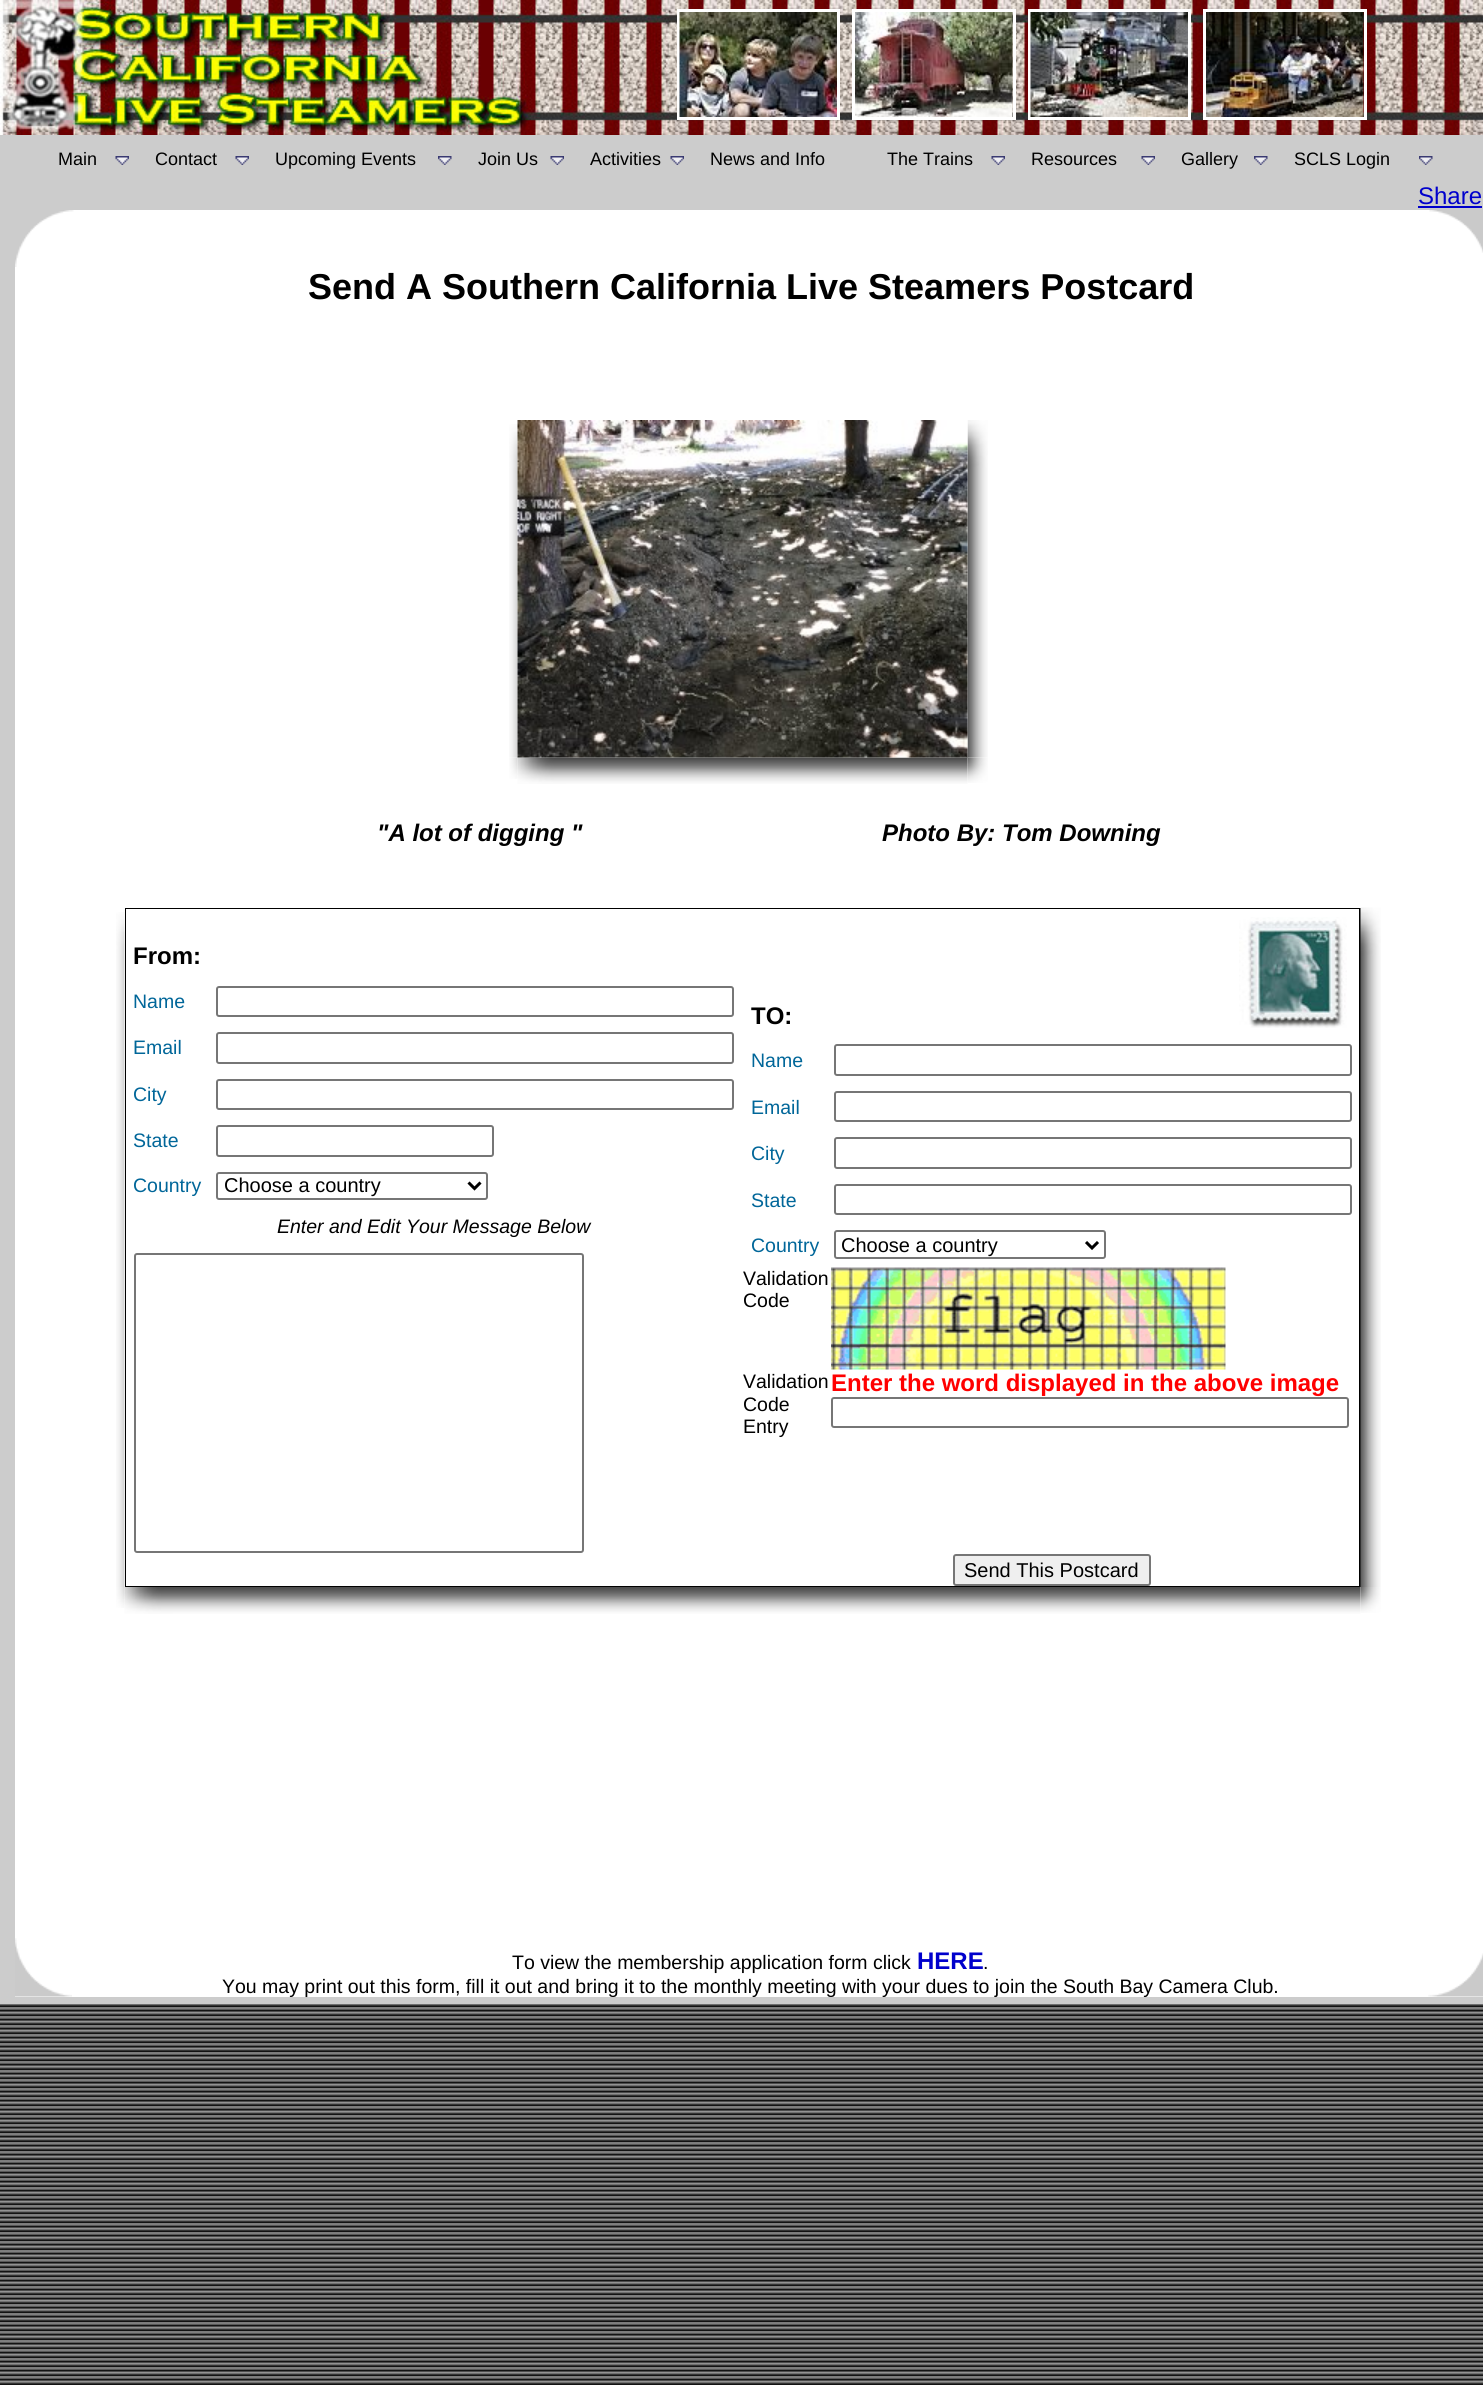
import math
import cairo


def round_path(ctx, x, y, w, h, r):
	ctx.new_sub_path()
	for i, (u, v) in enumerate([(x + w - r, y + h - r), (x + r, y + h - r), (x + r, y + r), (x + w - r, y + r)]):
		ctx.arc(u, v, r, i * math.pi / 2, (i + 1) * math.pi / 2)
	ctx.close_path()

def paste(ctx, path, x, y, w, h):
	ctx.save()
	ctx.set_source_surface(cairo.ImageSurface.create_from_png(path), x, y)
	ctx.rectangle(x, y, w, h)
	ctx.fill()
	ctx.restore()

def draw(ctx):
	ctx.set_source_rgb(1, 1, 1)
	ctx.paint()
	paste(ctx, 'media/1.png', 0, 2004, 1483, 381)
	paste(ctx, 'media/2.png', 0, 0, 549, 135)
	paste(ctx, 'media/3.png', 549, 0, 934, 135)
	ctx.rectangle(678.5, 10.5, 160, 108)
	ctx.set_source_rgb(1, 1, 1)
	ctx.set_line_width(3)
	ctx.stroke()
	ctx.rectangle(853.5, 10.5, 161, 108)
	ctx.stroke()
	ctx.rectangle(1029.5, 10.5, 160, 108)
	ctx.stroke()
	ctx.rectangle(1204.5, 10.5, 161, 108)
	ctx.stroke()
	paste(ctx, 'media/4.png', 679, 12, 158, 105)
	paste(ctx, 'media/5.png', 855, 12, 158, 105)
	paste(ctx, 'media/6.png', 1030, 12, 158, 105)
	paste(ctx, 'media/7.png', 1206, 12, 158, 105)
	ctx.set_source_rgb(0.8, 0.8, 0.8)
	ctx.rectangle(0, 135, 1483, 48)
	ctx.fill()
	ctx.select_font_face('Liberation Sans')
	ctx.set_font_size(18)
	ctx.set_source_rgb(0, 0, 0)
	ctx.move_to(58, 165)
	ctx.show_text('Main')
	paste(ctx, 'media/8.png', 115, 156, 14, 9)
	ctx.move_to(155, 165)
	ctx.show_text('Contact')
	paste(ctx, 'media/8.png', 235, 156, 14, 9)
	ctx.move_to(275, 165)
	ctx.show_text('Upcoming Events')
	paste(ctx, 'media/9.png', 438, 156, 14, 9)
	ctx.move_to(478, 165)
	ctx.show_text('Join Us')
	paste(ctx, 'media/10.png', 550, 156, 14, 9)
	ctx.move_to(590, 165)
	ctx.show_text('Activities')
	paste(ctx, 'media/10.png', 670, 156, 14, 9)
	ctx.move_to(710, 165)
	ctx.show_text('News and Info')
	ctx.move_to(887, 165)
	ctx.show_text('The Trains')
	paste(ctx, 'media/8.png', 991, 156, 14, 9)
	ctx.move_to(1031, 165)
	ctx.show_text('Resources')
	paste(ctx, 'media/10.png', 1141, 156, 14, 9)
	ctx.move_to(1181, 165)
	ctx.show_text('Gallery')
	paste(ctx, 'media/9.png', 1254, 156, 14, 9)
	ctx.move_to(1294, 165)
	ctx.show_text('SCLS Login')
	paste(ctx, 'media/11.png', 1419, 156, 14, 9)
	ctx.set_source_rgb(0.8, 0.8, 0.8)
	ctx.rectangle(0, 183, 1483, 27)
	ctx.fill()
	ctx.set_font_size(24)
	ctx.set_source_rgb(0, 0, 0.8)
	ctx.move_to(1418, 204)
	ctx.show_text('Share')
	ctx.rectangle(1418, 206, 64, 2)
	ctx.fill()
	ctx.set_source_rgb(0.8, 0.8, 0.8)
	ctx.rectangle(0, 1997, 1483, 7)
	ctx.rectangle(0, 210, 15, 1787)
	ctx.fill()
	paste(ctx, 'media/12.png', 15, 210, 59, 57)
	paste(ctx, 'media/13.png', 1429, 210, 54, 43)
	ctx.select_font_face('Liberation Sans', cairo.FONT_SLANT_NORMAL, cairo.FONT_WEIGHT_BOLD)
	ctx.set_font_size(36)
	ctx.set_source_rgb(0, 0, 0)
	ctx.move_to(308, 299)
	ctx.show_text('Send A Southern California Live Steamers Postcard')
	paste(ctx, 'media/14.png', 509, 424, 9, 334)
	paste(ctx, 'media/16.png', 967, 420, 21, 338)
	paste(ctx, 'media/17.png', 509, 757, 9, 22)
	paste(ctx, 'media/18.png', 517, 757, 451, 27)
	paste(ctx, 'media/19.png', 967, 757, 21, 26)
	paste(ctx, 'media/15.png', 517, 420, 451, 338)
	ctx.select_font_face('Liberation Sans', cairo.FONT_SLANT_ITALIC, cairo.FONT_WEIGHT_BOLD)
	ctx.set_font_size(24)
	ctx.move_to(377, 841)
	ctx.show_text('"A lot of digging "')
	ctx.move_to(882, 841)
	ctx.show_text('Photo By: Tom Downing')
	paste(ctx, 'media/20.png', 116, 912, 9, 675)
	ctx.rectangle(125, 908, 1236, 679)
	ctx.fill()
	ctx.set_source_rgb(1, 1, 1)
	ctx.rectangle(126, 909, 1233, 677)
	ctx.fill()
	ctx.select_font_face('Liberation Sans', cairo.FONT_SLANT_NORMAL, cairo.FONT_WEIGHT_BOLD)
	ctx.set_source_rgb(0, 0, 0)
	ctx.move_to(133, 964)
	ctx.show_text('From:')
	ctx.select_font_face('Liberation Sans')
	ctx.set_font_size(19.5)
	ctx.set_source_rgb(0, 0.4, 0.6)
	ctx.move_to(133, 1008)
	ctx.show_text('Name')
	round_path(ctx, 217, 987, 516, 29, 2)
	ctx.set_source_rgb(0.463, 0.463, 0.463)
	ctx.set_line_width(2)
	ctx.stroke()
	ctx.set_source_rgb(0, 0.4, 0.6)
	ctx.move_to(133, 1054)
	ctx.show_text('Email')
	round_path(ctx, 217, 1033, 516, 30, 2)
	ctx.set_source_rgb(0.463, 0.463, 0.463)
	ctx.stroke()
	ctx.set_source_rgb(0, 0.4, 0.6)
	ctx.move_to(133, 1101)
	ctx.show_text('City')
	round_path(ctx, 217, 1080, 516, 29, 2)
	ctx.set_source_rgb(0.463, 0.463, 0.463)
	ctx.stroke()
	ctx.set_source_rgb(0, 0.4, 0.6)
	ctx.move_to(133, 1147)
	ctx.show_text('State')
	round_path(ctx, 217, 1126, 276, 30, 2)
	ctx.set_source_rgb(0.463, 0.463, 0.463)
	ctx.stroke()
	ctx.set_source_rgb(0, 0.4, 0.6)
	ctx.move_to(133, 1192)
	ctx.show_text('Country')
	round_path(ctx, 217, 1173, 270, 26, 2)
	ctx.set_source_rgb(0.463, 0.463, 0.463)
	ctx.stroke()
	ctx.new_path()
	ctx.move_to(468.5, 1182.5)
	ctx.line_to(474.5, 1188.5)
	ctx.line_to(480.5, 1182.5)
	ctx.set_source_rgb(0, 0, 0)
	ctx.set_line_width(3)
	ctx.stroke()
	ctx.set_font_size(20)
	ctx.move_to(224, 1192)
	ctx.show_text('Choose a country')
	ctx.select_font_face('Liberation Sans', cairo.FONT_SLANT_ITALIC)
	ctx.set_font_size(19.5)
	ctx.move_to(277, 1233)
	ctx.show_text('Enter and Edit Your Message Below')
	round_path(ctx, 135, 1254, 448, 298, 2)
	ctx.set_source_rgb(0.463, 0.463, 0.463)
	ctx.set_line_width(2)
	ctx.stroke()
	ctx.select_font_face('Liberation Sans', cairo.FONT_SLANT_NORMAL, cairo.FONT_WEIGHT_BOLD)
	ctx.set_font_size(24)
	ctx.set_source_rgb(0, 0, 0)
	ctx.move_to(751, 1024)
	ctx.show_text('TO:')
	paste(ctx, 'media/21.png', 1239, 917, 108, 111)
	ctx.select_font_face('Liberation Sans')
	ctx.set_font_size(19.5)
	ctx.set_source_rgb(0, 0.4, 0.6)
	ctx.move_to(751, 1067)
	ctx.show_text('Name')
	round_path(ctx, 835, 1045, 516, 30, 2)
	ctx.set_source_rgb(0.463, 0.463, 0.463)
	ctx.stroke()
	ctx.set_source_rgb(0, 0.4, 0.6)
	ctx.move_to(751, 1114)
	ctx.show_text('Email')
	round_path(ctx, 835, 1092, 516, 29, 2)
	ctx.set_source_rgb(0.463, 0.463, 0.463)
	ctx.stroke()
	ctx.set_source_rgb(0, 0.4, 0.6)
	ctx.move_to(751, 1160)
	ctx.show_text('City')
	round_path(ctx, 835, 1138, 516, 30, 2)
	ctx.set_source_rgb(0.463, 0.463, 0.463)
	ctx.stroke()
	ctx.set_source_rgb(0, 0.4, 0.6)
	ctx.move_to(751, 1207)
	ctx.show_text('State')
	round_path(ctx, 835, 1185, 516, 29, 2)
	ctx.set_source_rgb(0.463, 0.463, 0.463)
	ctx.stroke()
	ctx.set_source_rgb(0, 0.4, 0.6)
	ctx.move_to(751, 1252)
	ctx.show_text('Country')
	round_path(ctx, 835, 1231, 270, 27, 2)
	ctx.set_source_rgb(0.463, 0.463, 0.463)
	ctx.stroke()
	ctx.new_path()
	ctx.move_to(1086, 1242)
	ctx.line_to(1092, 1248)
	ctx.line_to(1098, 1242)
	ctx.set_source_rgb(0, 0, 0)
	ctx.set_line_width(3)
	ctx.stroke()
	ctx.set_font_size(20)
	ctx.move_to(841, 1252)
	ctx.show_text('Choose a country')
	ctx.set_font_size(19.5)
	ctx.move_to(743, 1285)
	ctx.show_text('Validation')
	ctx.move_to(743, 1307)
	ctx.show_text('Code')
	paste(ctx, 'media/22.png', 831, 1267, 395, 103)
	for x, y, s in [
		(743, 1388, 'Validation'),
		(743, 1411, 'Code'),
		(743, 1433, 'Entry'),
	]:
		ctx.move_to(x, y)
		ctx.show_text(s)
	ctx.select_font_face('Liberation Sans', cairo.FONT_SLANT_NORMAL, cairo.FONT_WEIGHT_BOLD)
	ctx.set_font_size(24)
	ctx.set_source_rgb(1, 0, 0)
	ctx.move_to(831, 1391)
	ctx.show_text('Enter the word displayed in the above image')
	round_path(ctx, 832, 1398, 516, 29, 2)
	ctx.set_source_rgb(0.463, 0.463, 0.463)
	ctx.set_line_width(2)
	ctx.stroke()
	ctx.set_source_rgb(0.937, 0.937, 0.937)
	round_path(ctx, 954, 1555, 196, 30, 2)
	ctx.fill_preserve()
	ctx.set_source_rgb(0.463, 0.463, 0.463)
	ctx.stroke()
	ctx.select_font_face('Liberation Sans')
	ctx.set_font_size(20)
	ctx.set_source_rgb(0, 0, 0)
	ctx.move_to(964, 1577)
	ctx.show_text('Send This Postcard')
	paste(ctx, 'media/23.png', 1360, 907, 21, 680)
	paste(ctx, 'media/24.png', 116, 1587, 9, 21)
	paste(ctx, 'media/25.png', 124, 1587, 1237, 27)
	paste(ctx, 'media/26.png', 1360, 1587, 21, 26)
	ctx.set_font_size(19.5)
	ctx.move_to(512, 1969)
	ctx.show_text('To view the membership application form click')
	ctx.select_font_face('Liberation Sans', cairo.FONT_SLANT_NORMAL, cairo.FONT_WEIGHT_BOLD)
	ctx.set_font_size(24)
	ctx.set_source_rgb(0, 0, 0.8)
	ctx.move_to(917, 1969)
	ctx.show_text('HERE')
	ctx.select_font_face('Liberation Sans')
	ctx.set_font_size(19.5)
	ctx.set_source_rgb(0, 0, 0)
	ctx.move_to(983, 1969)
	ctx.show_text('.')
	ctx.move_to(222, 1993)
	ctx.show_text('You may print out this form, fill it out and bring it to the monthly meeting with your dues to join the South Bay Camera Club.')
	paste(ctx, 'media/27.png', 15, 1938, 57, 59)
	paste(ctx, 'media/28.png', 1428, 1953, 55, 44)


surface = cairo.ImageSurface(cairo.FORMAT_RGB24, 1483, 2385)
ctx = cairo.Context(surface)
options = cairo.FontOptions()
options.set_hint_metrics(cairo.HINT_METRICS_OFF)
options.set_hint_style(cairo.HINT_STYLE_NONE)
ctx.set_font_options(options)
ctx.set_miter_limit(4)
draw(ctx)
surface.write_to_png('image.png')
